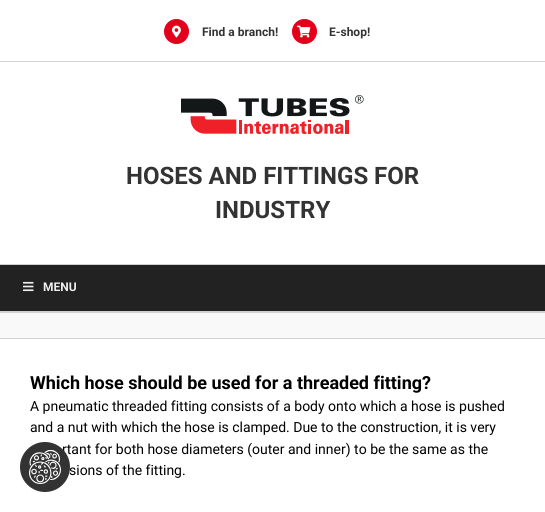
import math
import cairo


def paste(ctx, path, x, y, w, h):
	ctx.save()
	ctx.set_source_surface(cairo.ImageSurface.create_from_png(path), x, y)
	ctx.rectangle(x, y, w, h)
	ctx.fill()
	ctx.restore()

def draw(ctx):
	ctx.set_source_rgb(1, 1, 1)
	ctx.paint()
	ctx.set_source_rgb(0.824, 0.827, 0.831)
	ctx.rectangle(0, 61, 545, 1)
	ctx.fill()
	ctx.set_source_rgb(0.886, 0, 0.102)
	ctx.arc(176.5, 31.5, 12, 0, 2 * math.pi)
	ctx.fill_preserve()
	ctx.set_line_width(1)
	ctx.stroke()
	paste(ctx, 'media/1.png', 172, 25, 9, 13)
	ctx.select_font_face('Roboto', cairo.FONT_SLANT_NORMAL, cairo.FONT_WEIGHT_BOLD)
	ctx.set_font_size(12)
	ctx.set_source_rgb(0.2, 0.2, 0.2)
	ctx.move_to(202, 36)
	ctx.show_text('Find a branch!')
	ctx.set_source_rgb(0.886, 0, 0.102)
	ctx.new_path()
	ctx.arc(304.5, 31.5, 12, 0, 2 * math.pi)
	ctx.fill_preserve()
	ctx.stroke()
	paste(ctx, 'media/2.png', 297, 25, 14, 13)
	ctx.set_source_rgb(0.2, 0.2, 0.2)
	ctx.move_to(329, 36)
	ctx.show_text('E-shop!')
	ctx.set_source_rgb(0.824, 0.827, 0.831)
	ctx.rectangle(0, 264, 545, 1)
	ctx.fill()
	paste(ctx, 'media/3.png', 181, 95, 183, 39)
	ctx.set_font_size(24)
	ctx.set_source_rgb(0.2, 0.2, 0.2)
	ctx.move_to(126, 184)
	ctx.show_text('HOSES AND FITTINGS FOR')
	ctx.move_to(215, 218)
	ctx.show_text('INDUSTRY')
	ctx.set_source_rgb(0.133, 0.133, 0.133)
	ctx.rectangle(0, 265, 545, 46)
	ctx.fill()
	paste(ctx, 'media/4.png', 23, 281, 11, 11)
	ctx.set_font_size(12)
	ctx.set_source_rgb(0.933, 0.933, 0.933)
	ctx.move_to(43, 291)
	ctx.show_text('MENU')
	ctx.set_source_rgb(0.976, 0.976, 0.976)
	ctx.rectangle(0, 313, 545, 25)
	ctx.fill()
	ctx.set_source_rgb(0.824, 0.827, 0.831)
	ctx.rectangle(0, 311, 545, 2)
	ctx.rectangle(0, 338, 545, 1)
	ctx.fill()
	ctx.set_font_size(18)
	ctx.set_source_rgb(0, 0, 0)
	ctx.move_to(30, 389)
	ctx.show_text('Which hose should be used for a threaded fitting?')
	ctx.select_font_face('Roboto')
	ctx.set_font_size(14)
	for x, y, s in [
		(30, 411, 'A pneumatic threaded fitting consists of a body onto which a hose is pushed'),
		(30, 432, 'and a nut with which the hose is clamped. Due to the construction, it is very'),
		(62, 454, 'rtant for both hose diameters (outer and inner) to be the same as the'),
		(69, 475, 'sions of the fitting.'),
	]:
		ctx.move_to(x, y)
		ctx.show_text(s)
	ctx.set_source_rgb(0.2, 0.2, 0.2)
	ctx.new_path()
	ctx.arc(45, 467, 25, 0, 2 * math.pi)
	ctx.fill()
	paste(ctx, 'media/5.png', 29, 450, 32, 34)


surface = cairo.ImageSurface(cairo.FORMAT_RGB24, 545, 512)
ctx = cairo.Context(surface)
options = cairo.FontOptions()
options.set_hint_metrics(cairo.HINT_METRICS_OFF)
options.set_hint_style(cairo.HINT_STYLE_NONE)
ctx.set_font_options(options)
ctx.set_miter_limit(4)
draw(ctx)
surface.write_to_png('image.png')
